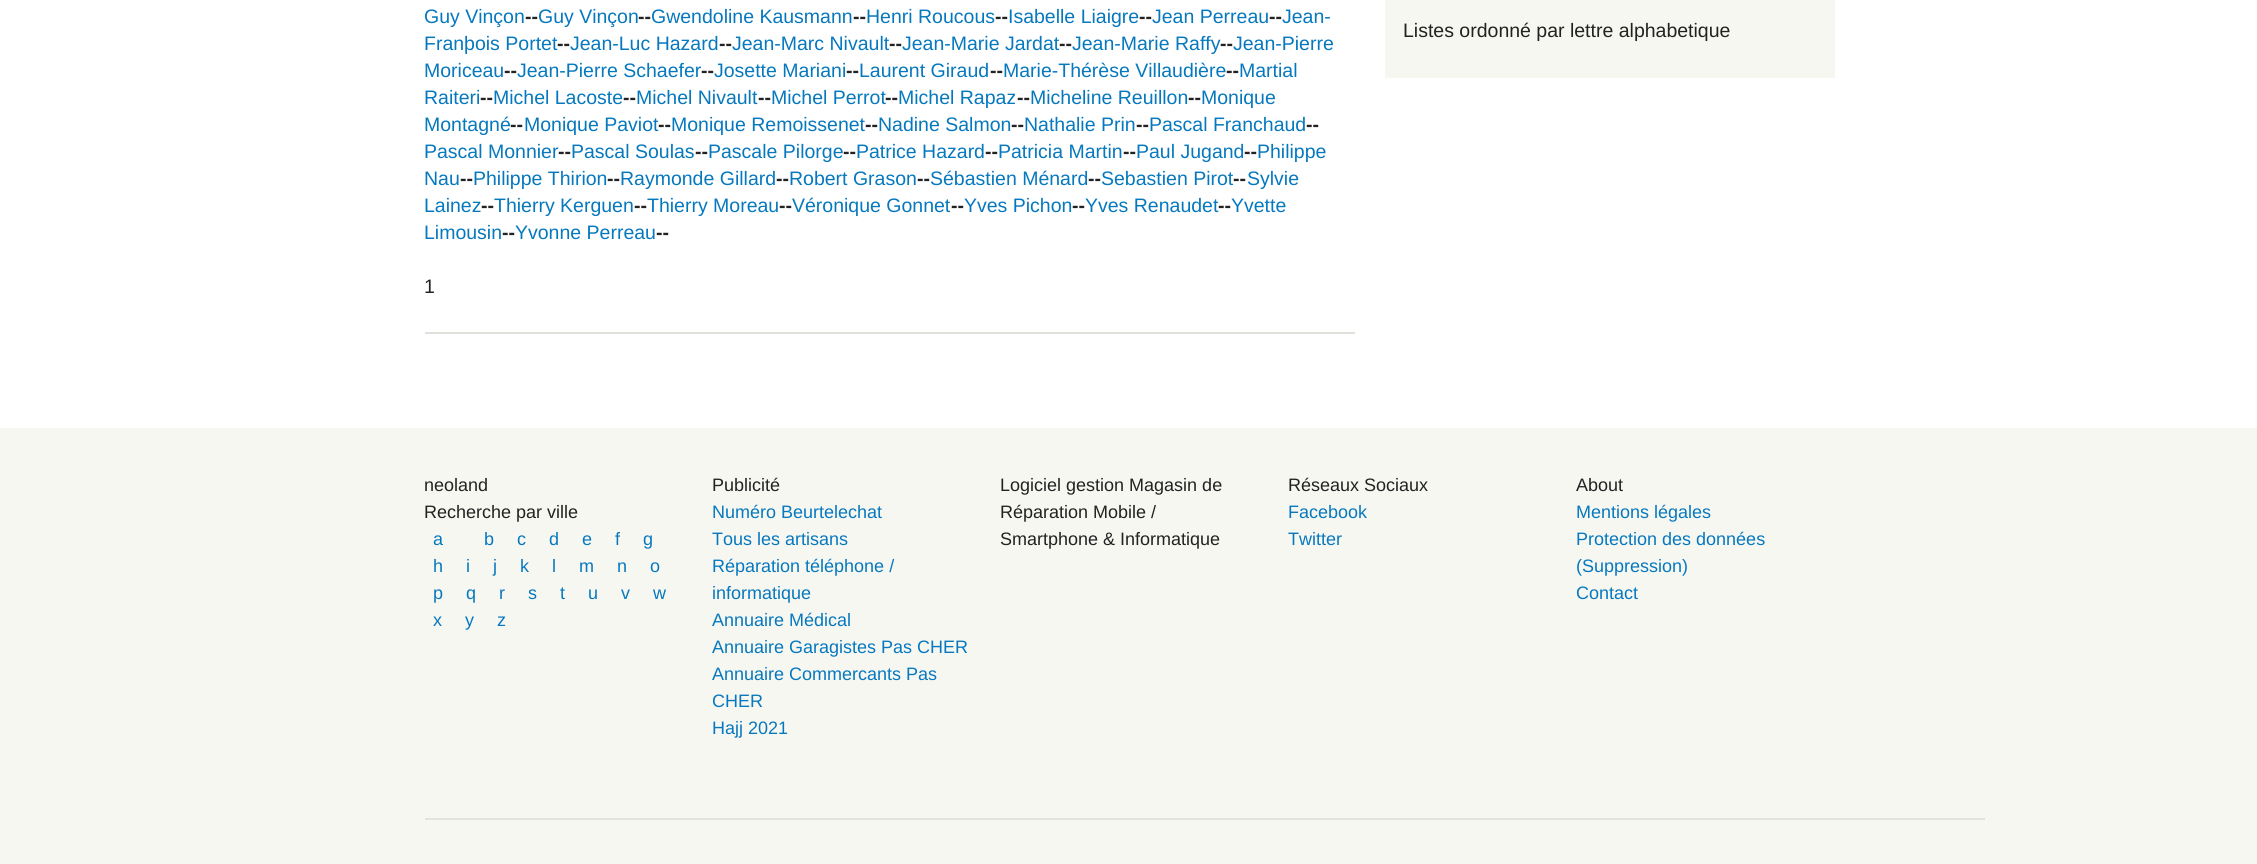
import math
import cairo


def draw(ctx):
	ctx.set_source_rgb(1, 1, 1)
	ctx.paint()
	ctx.set_source_rgb(0.882, 0.882, 0.859)
	ctx.rectangle(425, 332, 930, 2)
	ctx.fill()
	ctx.select_font_face('Liberation Sans')
	ctx.set_font_size(19.5)
	ctx.set_source_rgb(0.024, 0.471, 0.745)
	ctx.move_to(424, 23)
	ctx.show_text('Guy Vinçon')
	ctx.select_font_face('Liberation Sans', cairo.FONT_SLANT_NORMAL, cairo.FONT_WEIGHT_BOLD)
	ctx.set_source_rgb(0.133, 0.133, 0.133)
	ctx.move_to(525, 23)
	ctx.show_text('--')
	ctx.select_font_face('Liberation Sans')
	ctx.set_source_rgb(0.024, 0.471, 0.745)
	ctx.move_to(538, 23)
	ctx.show_text('Guy Vinçon')
	ctx.select_font_face('Liberation Sans', cairo.FONT_SLANT_NORMAL, cairo.FONT_WEIGHT_BOLD)
	ctx.set_source_rgb(0.133, 0.133, 0.133)
	ctx.move_to(638, 23)
	ctx.show_text('--')
	ctx.select_font_face('Liberation Sans')
	ctx.set_source_rgb(0.024, 0.471, 0.745)
	ctx.move_to(651, 23)
	ctx.show_text('Gwendoline Kausmann')
	ctx.select_font_face('Liberation Sans', cairo.FONT_SLANT_NORMAL, cairo.FONT_WEIGHT_BOLD)
	ctx.set_source_rgb(0.133, 0.133, 0.133)
	ctx.move_to(853, 23)
	ctx.show_text('--')
	ctx.select_font_face('Liberation Sans')
	ctx.set_source_rgb(0.024, 0.471, 0.745)
	ctx.move_to(866, 23)
	ctx.show_text('Henri Roucous')
	ctx.select_font_face('Liberation Sans', cairo.FONT_SLANT_NORMAL, cairo.FONT_WEIGHT_BOLD)
	ctx.set_source_rgb(0.133, 0.133, 0.133)
	ctx.move_to(995, 23)
	ctx.show_text('--')
	ctx.select_font_face('Liberation Sans')
	ctx.set_source_rgb(0.024, 0.471, 0.745)
	ctx.move_to(1008, 23)
	ctx.show_text('Isabelle Liaigre')
	ctx.select_font_face('Liberation Sans', cairo.FONT_SLANT_NORMAL, cairo.FONT_WEIGHT_BOLD)
	ctx.set_source_rgb(0.133, 0.133, 0.133)
	ctx.move_to(1139, 23)
	ctx.show_text('--')
	ctx.select_font_face('Liberation Sans')
	ctx.set_source_rgb(0.024, 0.471, 0.745)
	ctx.move_to(1152, 23)
	ctx.show_text('Jean Perreau')
	ctx.select_font_face('Liberation Sans', cairo.FONT_SLANT_NORMAL, cairo.FONT_WEIGHT_BOLD)
	ctx.set_source_rgb(0.133, 0.133, 0.133)
	ctx.move_to(1269, 23)
	ctx.show_text('--')
	ctx.select_font_face('Liberation Sans')
	ctx.set_source_rgb(0.024, 0.471, 0.745)
	ctx.move_to(1282, 23)
	ctx.show_text('Jean-')
	ctx.move_to(424, 50)
	ctx.show_text('Franþois Portet')
	ctx.select_font_face('Liberation Sans', cairo.FONT_SLANT_NORMAL, cairo.FONT_WEIGHT_BOLD)
	ctx.set_source_rgb(0.133, 0.133, 0.133)
	ctx.move_to(557, 50)
	ctx.show_text('--')
	ctx.select_font_face('Liberation Sans')
	ctx.set_source_rgb(0.024, 0.471, 0.745)
	ctx.move_to(570, 50)
	ctx.show_text('Jean-Luc Hazard')
	ctx.select_font_face('Liberation Sans', cairo.FONT_SLANT_NORMAL, cairo.FONT_WEIGHT_BOLD)
	ctx.set_source_rgb(0.133, 0.133, 0.133)
	ctx.move_to(719, 50)
	ctx.show_text('--')
	ctx.select_font_face('Liberation Sans')
	ctx.set_source_rgb(0.024, 0.471, 0.745)
	ctx.move_to(732, 50)
	ctx.show_text('Jean-Marc Nivault')
	ctx.select_font_face('Liberation Sans', cairo.FONT_SLANT_NORMAL, cairo.FONT_WEIGHT_BOLD)
	ctx.set_source_rgb(0.133, 0.133, 0.133)
	ctx.move_to(889, 50)
	ctx.show_text('--')
	ctx.select_font_face('Liberation Sans')
	ctx.set_source_rgb(0.024, 0.471, 0.745)
	ctx.move_to(902, 50)
	ctx.show_text('Jean-Marie Jardat')
	ctx.select_font_face('Liberation Sans', cairo.FONT_SLANT_NORMAL, cairo.FONT_WEIGHT_BOLD)
	ctx.set_source_rgb(0.133, 0.133, 0.133)
	ctx.move_to(1059, 50)
	ctx.show_text('--')
	ctx.select_font_face('Liberation Sans')
	ctx.set_source_rgb(0.024, 0.471, 0.745)
	ctx.move_to(1072, 50)
	ctx.show_text('Jean-Marie Raffy')
	ctx.select_font_face('Liberation Sans', cairo.FONT_SLANT_NORMAL, cairo.FONT_WEIGHT_BOLD)
	ctx.set_source_rgb(0.133, 0.133, 0.133)
	ctx.move_to(1220, 50)
	ctx.show_text('--')
	ctx.select_font_face('Liberation Sans')
	ctx.set_source_rgb(0.024, 0.471, 0.745)
	ctx.move_to(1233, 50)
	ctx.show_text('Jean-Pierre')
	ctx.move_to(424, 77)
	ctx.show_text('Moriceau')
	ctx.select_font_face('Liberation Sans', cairo.FONT_SLANT_NORMAL, cairo.FONT_WEIGHT_BOLD)
	ctx.set_source_rgb(0.133, 0.133, 0.133)
	ctx.move_to(504, 77)
	ctx.show_text('--')
	ctx.select_font_face('Liberation Sans')
	ctx.set_source_rgb(0.024, 0.471, 0.745)
	ctx.move_to(517, 77)
	ctx.show_text('Jean-Pierre Schaefer')
	ctx.select_font_face('Liberation Sans', cairo.FONT_SLANT_NORMAL, cairo.FONT_WEIGHT_BOLD)
	ctx.set_source_rgb(0.133, 0.133, 0.133)
	ctx.move_to(701, 77)
	ctx.show_text('--')
	ctx.select_font_face('Liberation Sans')
	ctx.set_source_rgb(0.024, 0.471, 0.745)
	ctx.move_to(714, 77)
	ctx.show_text('Josette Mariani')
	ctx.select_font_face('Liberation Sans', cairo.FONT_SLANT_NORMAL, cairo.FONT_WEIGHT_BOLD)
	ctx.set_source_rgb(0.133, 0.133, 0.133)
	ctx.move_to(846, 77)
	ctx.show_text('--')
	ctx.select_font_face('Liberation Sans')
	ctx.set_source_rgb(0.024, 0.471, 0.745)
	ctx.move_to(859, 77)
	ctx.show_text('Laurent Giraud')
	ctx.select_font_face('Liberation Sans', cairo.FONT_SLANT_NORMAL, cairo.FONT_WEIGHT_BOLD)
	ctx.set_source_rgb(0.133, 0.133, 0.133)
	ctx.move_to(990, 77)
	ctx.show_text('--')
	ctx.select_font_face('Liberation Sans')
	ctx.set_source_rgb(0.024, 0.471, 0.745)
	ctx.move_to(1003, 77)
	ctx.show_text('Marie-Thérèse Villaudière')
	ctx.select_font_face('Liberation Sans', cairo.FONT_SLANT_NORMAL, cairo.FONT_WEIGHT_BOLD)
	ctx.set_source_rgb(0.133, 0.133, 0.133)
	ctx.move_to(1226, 77)
	ctx.show_text('--')
	ctx.select_font_face('Liberation Sans')
	ctx.set_source_rgb(0.024, 0.471, 0.745)
	ctx.move_to(1239, 77)
	ctx.show_text('Martial')
	ctx.move_to(424, 104)
	ctx.show_text('Raiteri')
	ctx.select_font_face('Liberation Sans', cairo.FONT_SLANT_NORMAL, cairo.FONT_WEIGHT_BOLD)
	ctx.set_source_rgb(0.133, 0.133, 0.133)
	ctx.move_to(480, 104)
	ctx.show_text('--')
	ctx.select_font_face('Liberation Sans')
	ctx.set_source_rgb(0.024, 0.471, 0.745)
	ctx.move_to(493, 104)
	ctx.show_text('Michel Lacoste')
	ctx.select_font_face('Liberation Sans', cairo.FONT_SLANT_NORMAL, cairo.FONT_WEIGHT_BOLD)
	ctx.set_source_rgb(0.133, 0.133, 0.133)
	ctx.move_to(623, 104)
	ctx.show_text('--')
	ctx.select_font_face('Liberation Sans')
	ctx.set_source_rgb(0.024, 0.471, 0.745)
	ctx.move_to(636, 104)
	ctx.show_text('Michel Nivault')
	ctx.select_font_face('Liberation Sans', cairo.FONT_SLANT_NORMAL, cairo.FONT_WEIGHT_BOLD)
	ctx.set_source_rgb(0.133, 0.133, 0.133)
	ctx.move_to(758, 104)
	ctx.show_text('--')
	ctx.select_font_face('Liberation Sans')
	ctx.set_source_rgb(0.024, 0.471, 0.745)
	ctx.move_to(771, 104)
	ctx.show_text('Michel Perrot')
	ctx.select_font_face('Liberation Sans', cairo.FONT_SLANT_NORMAL, cairo.FONT_WEIGHT_BOLD)
	ctx.set_source_rgb(0.133, 0.133, 0.133)
	ctx.move_to(885, 104)
	ctx.show_text('--')
	ctx.select_font_face('Liberation Sans')
	ctx.set_source_rgb(0.024, 0.471, 0.745)
	ctx.move_to(898, 104)
	ctx.show_text('Michel Rapaz')
	ctx.select_font_face('Liberation Sans', cairo.FONT_SLANT_NORMAL, cairo.FONT_WEIGHT_BOLD)
	ctx.set_source_rgb(0.133, 0.133, 0.133)
	ctx.move_to(1017, 104)
	ctx.show_text('--')
	ctx.select_font_face('Liberation Sans')
	ctx.set_source_rgb(0.024, 0.471, 0.745)
	ctx.move_to(1030, 104)
	ctx.show_text('Micheline Reuillon')
	ctx.select_font_face('Liberation Sans', cairo.FONT_SLANT_NORMAL, cairo.FONT_WEIGHT_BOLD)
	ctx.set_source_rgb(0.133, 0.133, 0.133)
	ctx.move_to(1188, 104)
	ctx.show_text('--')
	ctx.select_font_face('Liberation Sans')
	ctx.set_source_rgb(0.024, 0.471, 0.745)
	ctx.move_to(1201, 104)
	ctx.show_text('Monique')
	ctx.move_to(424, 131)
	ctx.show_text('Montagné')
	ctx.select_font_face('Liberation Sans', cairo.FONT_SLANT_NORMAL, cairo.FONT_WEIGHT_BOLD)
	ctx.set_source_rgb(0.133, 0.133, 0.133)
	ctx.move_to(510, 131)
	ctx.show_text('--')
	ctx.select_font_face('Liberation Sans')
	ctx.set_source_rgb(0.024, 0.471, 0.745)
	ctx.move_to(524, 131)
	ctx.show_text('Monique Paviot')
	ctx.select_font_face('Liberation Sans', cairo.FONT_SLANT_NORMAL, cairo.FONT_WEIGHT_BOLD)
	ctx.set_source_rgb(0.133, 0.133, 0.133)
	ctx.move_to(658, 131)
	ctx.show_text('--')
	ctx.select_font_face('Liberation Sans')
	ctx.set_source_rgb(0.024, 0.471, 0.745)
	ctx.move_to(671, 131)
	ctx.show_text('Monique Remoissenet')
	ctx.select_font_face('Liberation Sans', cairo.FONT_SLANT_NORMAL, cairo.FONT_WEIGHT_BOLD)
	ctx.set_source_rgb(0.133, 0.133, 0.133)
	ctx.move_to(865, 131)
	ctx.show_text('--')
	ctx.select_font_face('Liberation Sans')
	ctx.set_source_rgb(0.024, 0.471, 0.745)
	ctx.move_to(878, 131)
	ctx.show_text('Nadine Salmon')
	ctx.select_font_face('Liberation Sans', cairo.FONT_SLANT_NORMAL, cairo.FONT_WEIGHT_BOLD)
	ctx.set_source_rgb(0.133, 0.133, 0.133)
	ctx.move_to(1011, 131)
	ctx.show_text('--')
	ctx.select_font_face('Liberation Sans')
	ctx.set_source_rgb(0.024, 0.471, 0.745)
	ctx.move_to(1024, 131)
	ctx.show_text('Nathalie Prin')
	ctx.select_font_face('Liberation Sans', cairo.FONT_SLANT_NORMAL, cairo.FONT_WEIGHT_BOLD)
	ctx.set_source_rgb(0.133, 0.133, 0.133)
	ctx.move_to(1136, 131)
	ctx.show_text('--')
	ctx.select_font_face('Liberation Sans')
	ctx.set_source_rgb(0.024, 0.471, 0.745)
	ctx.move_to(1149, 131)
	ctx.show_text('Pascal Franchaud')
	ctx.select_font_face('Liberation Sans', cairo.FONT_SLANT_NORMAL, cairo.FONT_WEIGHT_BOLD)
	ctx.set_source_rgb(0.133, 0.133, 0.133)
	ctx.move_to(1306, 131)
	ctx.show_text('--')
	ctx.select_font_face('Liberation Sans')
	ctx.set_source_rgb(0.024, 0.471, 0.745)
	ctx.move_to(424, 158)
	ctx.show_text('Pascal Monnier')
	ctx.select_font_face('Liberation Sans', cairo.FONT_SLANT_NORMAL, cairo.FONT_WEIGHT_BOLD)
	ctx.set_source_rgb(0.133, 0.133, 0.133)
	ctx.move_to(558, 158)
	ctx.show_text('--')
	ctx.select_font_face('Liberation Sans')
	ctx.set_source_rgb(0.024, 0.471, 0.745)
	ctx.move_to(571, 158)
	ctx.show_text('Pascal Soulas')
	ctx.select_font_face('Liberation Sans', cairo.FONT_SLANT_NORMAL, cairo.FONT_WEIGHT_BOLD)
	ctx.set_source_rgb(0.133, 0.133, 0.133)
	ctx.move_to(695, 158)
	ctx.show_text('--')
	ctx.select_font_face('Liberation Sans')
	ctx.set_source_rgb(0.024, 0.471, 0.745)
	ctx.move_to(708, 158)
	ctx.show_text('Pascale Pilorge')
	ctx.select_font_face('Liberation Sans', cairo.FONT_SLANT_NORMAL, cairo.FONT_WEIGHT_BOLD)
	ctx.set_source_rgb(0.133, 0.133, 0.133)
	ctx.move_to(843, 158)
	ctx.show_text('--')
	ctx.select_font_face('Liberation Sans')
	ctx.set_source_rgb(0.024, 0.471, 0.745)
	ctx.move_to(856, 158)
	ctx.show_text('Patrice Hazard')
	ctx.select_font_face('Liberation Sans', cairo.FONT_SLANT_NORMAL, cairo.FONT_WEIGHT_BOLD)
	ctx.set_source_rgb(0.133, 0.133, 0.133)
	ctx.move_to(985, 158)
	ctx.show_text('--')
	ctx.select_font_face('Liberation Sans')
	ctx.set_source_rgb(0.024, 0.471, 0.745)
	ctx.move_to(998, 158)
	ctx.show_text('Patricia Martin')
	ctx.select_font_face('Liberation Sans', cairo.FONT_SLANT_NORMAL, cairo.FONT_WEIGHT_BOLD)
	ctx.set_source_rgb(0.133, 0.133, 0.133)
	ctx.move_to(1123, 158)
	ctx.show_text('--')
	ctx.select_font_face('Liberation Sans')
	ctx.set_source_rgb(0.024, 0.471, 0.745)
	ctx.move_to(1136, 158)
	ctx.show_text('Paul Jugand')
	ctx.select_font_face('Liberation Sans', cairo.FONT_SLANT_NORMAL, cairo.FONT_WEIGHT_BOLD)
	ctx.set_source_rgb(0.133, 0.133, 0.133)
	ctx.move_to(1244, 158)
	ctx.show_text('--')
	ctx.select_font_face('Liberation Sans')
	ctx.set_source_rgb(0.024, 0.471, 0.745)
	ctx.move_to(1257, 158)
	ctx.show_text('Philippe')
	ctx.move_to(424, 185)
	ctx.show_text('Nau')
	ctx.select_font_face('Liberation Sans', cairo.FONT_SLANT_NORMAL, cairo.FONT_WEIGHT_BOLD)
	ctx.set_source_rgb(0.133, 0.133, 0.133)
	ctx.move_to(460, 185)
	ctx.show_text('--')
	ctx.select_font_face('Liberation Sans')
	ctx.set_source_rgb(0.024, 0.471, 0.745)
	ctx.move_to(473, 185)
	ctx.show_text('Philippe Thirion')
	ctx.select_font_face('Liberation Sans', cairo.FONT_SLANT_NORMAL, cairo.FONT_WEIGHT_BOLD)
	ctx.set_source_rgb(0.133, 0.133, 0.133)
	ctx.move_to(607, 185)
	ctx.show_text('--')
	ctx.select_font_face('Liberation Sans')
	ctx.set_source_rgb(0.024, 0.471, 0.745)
	ctx.move_to(620, 185)
	ctx.show_text('Raymonde Gillard')
	ctx.select_font_face('Liberation Sans', cairo.FONT_SLANT_NORMAL, cairo.FONT_WEIGHT_BOLD)
	ctx.set_source_rgb(0.133, 0.133, 0.133)
	ctx.move_to(776, 185)
	ctx.show_text('--')
	ctx.select_font_face('Liberation Sans')
	ctx.set_source_rgb(0.024, 0.471, 0.745)
	ctx.move_to(789, 185)
	ctx.show_text('Robert Grason')
	ctx.select_font_face('Liberation Sans', cairo.FONT_SLANT_NORMAL, cairo.FONT_WEIGHT_BOLD)
	ctx.set_source_rgb(0.133, 0.133, 0.133)
	ctx.move_to(917, 185)
	ctx.show_text('--')
	ctx.select_font_face('Liberation Sans')
	ctx.set_source_rgb(0.024, 0.471, 0.745)
	ctx.move_to(930, 185)
	ctx.show_text('Sébastien Ménard')
	ctx.select_font_face('Liberation Sans', cairo.FONT_SLANT_NORMAL, cairo.FONT_WEIGHT_BOLD)
	ctx.set_source_rgb(0.133, 0.133, 0.133)
	ctx.move_to(1088, 185)
	ctx.show_text('--')
	ctx.select_font_face('Liberation Sans')
	ctx.set_source_rgb(0.024, 0.471, 0.745)
	ctx.move_to(1101, 185)
	ctx.show_text('Sebastien Pirot')
	ctx.select_font_face('Liberation Sans', cairo.FONT_SLANT_NORMAL, cairo.FONT_WEIGHT_BOLD)
	ctx.set_source_rgb(0.133, 0.133, 0.133)
	ctx.move_to(1233, 185)
	ctx.show_text('--')
	ctx.select_font_face('Liberation Sans')
	ctx.set_source_rgb(0.024, 0.471, 0.745)
	ctx.move_to(1247, 185)
	ctx.show_text('Sylvie')
	ctx.move_to(424, 212)
	ctx.show_text('Lainez')
	ctx.select_font_face('Liberation Sans', cairo.FONT_SLANT_NORMAL, cairo.FONT_WEIGHT_BOLD)
	ctx.set_source_rgb(0.133, 0.133, 0.133)
	ctx.move_to(481, 212)
	ctx.show_text('--')
	ctx.select_font_face('Liberation Sans')
	ctx.set_source_rgb(0.024, 0.471, 0.745)
	ctx.move_to(494, 212)
	ctx.show_text('Thierry Kerguen')
	ctx.select_font_face('Liberation Sans', cairo.FONT_SLANT_NORMAL, cairo.FONT_WEIGHT_BOLD)
	ctx.set_source_rgb(0.133, 0.133, 0.133)
	ctx.move_to(634, 212)
	ctx.show_text('--')
	ctx.select_font_face('Liberation Sans')
	ctx.set_source_rgb(0.024, 0.471, 0.745)
	ctx.move_to(647, 212)
	ctx.show_text('Thierry Moreau')
	ctx.select_font_face('Liberation Sans', cairo.FONT_SLANT_NORMAL, cairo.FONT_WEIGHT_BOLD)
	ctx.set_source_rgb(0.133, 0.133, 0.133)
	ctx.move_to(779, 212)
	ctx.show_text('--')
	ctx.select_font_face('Liberation Sans')
	ctx.set_source_rgb(0.024, 0.471, 0.745)
	ctx.move_to(792, 212)
	ctx.show_text('Véronique Gonnet')
	ctx.select_font_face('Liberation Sans', cairo.FONT_SLANT_NORMAL, cairo.FONT_WEIGHT_BOLD)
	ctx.set_source_rgb(0.133, 0.133, 0.133)
	ctx.move_to(951, 212)
	ctx.show_text('--')
	ctx.select_font_face('Liberation Sans')
	ctx.set_source_rgb(0.024, 0.471, 0.745)
	ctx.move_to(964, 212)
	ctx.show_text('Yves Pichon')
	ctx.select_font_face('Liberation Sans', cairo.FONT_SLANT_NORMAL, cairo.FONT_WEIGHT_BOLD)
	ctx.set_source_rgb(0.133, 0.133, 0.133)
	ctx.move_to(1072, 212)
	ctx.show_text('--')
	ctx.select_font_face('Liberation Sans')
	ctx.set_source_rgb(0.024, 0.471, 0.745)
	ctx.move_to(1085, 212)
	ctx.show_text('Yves Renaudet')
	ctx.select_font_face('Liberation Sans', cairo.FONT_SLANT_NORMAL, cairo.FONT_WEIGHT_BOLD)
	ctx.set_source_rgb(0.133, 0.133, 0.133)
	ctx.move_to(1218, 212)
	ctx.show_text('--')
	ctx.select_font_face('Liberation Sans')
	ctx.set_source_rgb(0.024, 0.471, 0.745)
	ctx.move_to(1231, 212)
	ctx.show_text('Yvette')
	ctx.move_to(424, 239)
	ctx.show_text('Limousin')
	ctx.select_font_face('Liberation Sans', cairo.FONT_SLANT_NORMAL, cairo.FONT_WEIGHT_BOLD)
	ctx.set_source_rgb(0.133, 0.133, 0.133)
	ctx.move_to(502, 239)
	ctx.show_text('--')
	ctx.select_font_face('Liberation Sans')
	ctx.set_source_rgb(0.024, 0.471, 0.745)
	ctx.move_to(515, 239)
	ctx.show_text('Yvonne Perreau')
	ctx.select_font_face('Liberation Sans', cairo.FONT_SLANT_NORMAL, cairo.FONT_WEIGHT_BOLD)
	ctx.set_source_rgb(0.133, 0.133, 0.133)
	ctx.move_to(656, 239)
	ctx.show_text('--')
	ctx.select_font_face('Liberation Sans')
	ctx.move_to(424, 293)
	ctx.show_text('1')
	ctx.set_source_rgb(0.965, 0.965, 0.949)
	ctx.rectangle(1385, 0, 450, 78)
	ctx.fill()
	ctx.set_source_rgb(0.133, 0.133, 0.133)
	ctx.move_to(1403, 37)
	ctx.show_text('Listes ordonné par lettre alphabetique')
	ctx.set_source_rgb(0.965, 0.965, 0.949)
	ctx.rectangle(0, 428, 2257, 436)
	ctx.fill()
	ctx.set_font_size(18)
	ctx.set_source_rgb(0.133, 0.133, 0.133)
	ctx.move_to(424, 491)
	ctx.show_text('neoland')
	ctx.move_to(424, 518)
	ctx.show_text('Recherche par ville')
	ctx.set_source_rgb(0.024, 0.471, 0.745)
	for x, y, s in [
		(433, 545, 'a'),
		(484, 545, 'b'),
		(517, 545, 'c'),
		(549, 545, 'd'),
		(582, 545, 'e'),
		(615, 545, 'f'),
		(643, 545, 'g'),
		(433, 572, 'h'),
		(466, 572, 'i'),
		(493, 572, 'j'),
		(520, 572, 'k'),
		(552, 572, 'l'),
		(579, 572, 'm'),
		(617, 572, 'n'),
		(650, 572, 'o'),
		(433, 599, 'p'),
		(466, 599, 'q'),
		(499, 599, 'r'),
		(528, 599, 's'),
		(560, 599, 't'),
		(588, 599, 'u'),
		(621, 599, 'v'),
		(653, 599, 'w'),
		(433, 626, 'x'),
		(465, 626, 'y'),
		(497, 626, 'z'),
	]:
		ctx.move_to(x, y)
		ctx.show_text(s)
	ctx.set_source_rgb(0.133, 0.133, 0.133)
	ctx.move_to(712, 491)
	ctx.show_text('Publicité')
	ctx.set_source_rgb(0.024, 0.471, 0.745)
	for x, y, s in [
		(712, 518, 'Numéro Beurtelechat'),
		(712, 545, 'Tous les artisans'),
		(712, 572, 'Réparation téléphone /'),
		(712, 599, 'informatique'),
		(712, 626, 'Annuaire Médical'),
		(712, 653, 'Annuaire Garagistes Pas CHER'),
		(712, 680, 'Annuaire Commercants Pas'),
		(712, 707, 'CHER'),
		(712, 734, 'Hajj 2021'),
	]:
		ctx.move_to(x, y)
		ctx.show_text(s)
	ctx.set_source_rgb(0.133, 0.133, 0.133)
	for x, y, s in [
		(1000, 491, 'Logiciel gestion Magasin de'),
		(1000, 518, 'Réparation Mobile /'),
		(1000, 545, 'Smartphone & Informatique'),
		(1288, 491, 'Réseaux Sociaux'),
	]:
		ctx.move_to(x, y)
		ctx.show_text(s)
	ctx.set_source_rgb(0.024, 0.471, 0.745)
	ctx.move_to(1288, 518)
	ctx.show_text('Facebook')
	ctx.move_to(1288, 545)
	ctx.show_text('Twitter')
	ctx.set_source_rgb(0.133, 0.133, 0.133)
	ctx.move_to(1576, 491)
	ctx.show_text('About')
	ctx.set_source_rgb(0.024, 0.471, 0.745)
	for x, y, s in [
		(1576, 518, 'Mentions légales'),
		(1576, 545, 'Protection des données'),
		(1576, 572, '(Suppression)'),
		(1576, 599, 'Contact'),
	]:
		ctx.move_to(x, y)
		ctx.show_text(s)
	ctx.set_source_rgb(0.886, 0.886, 0.875)
	ctx.rectangle(425, 818, 1560, 2)
	ctx.fill()


surface = cairo.ImageSurface(cairo.FORMAT_RGB24, 2257, 864)
ctx = cairo.Context(surface)
options = cairo.FontOptions()
options.set_hint_metrics(cairo.HINT_METRICS_OFF)
options.set_hint_style(cairo.HINT_STYLE_NONE)
ctx.set_font_options(options)
ctx.set_miter_limit(4)
draw(ctx)
surface.write_to_png('image.png')
